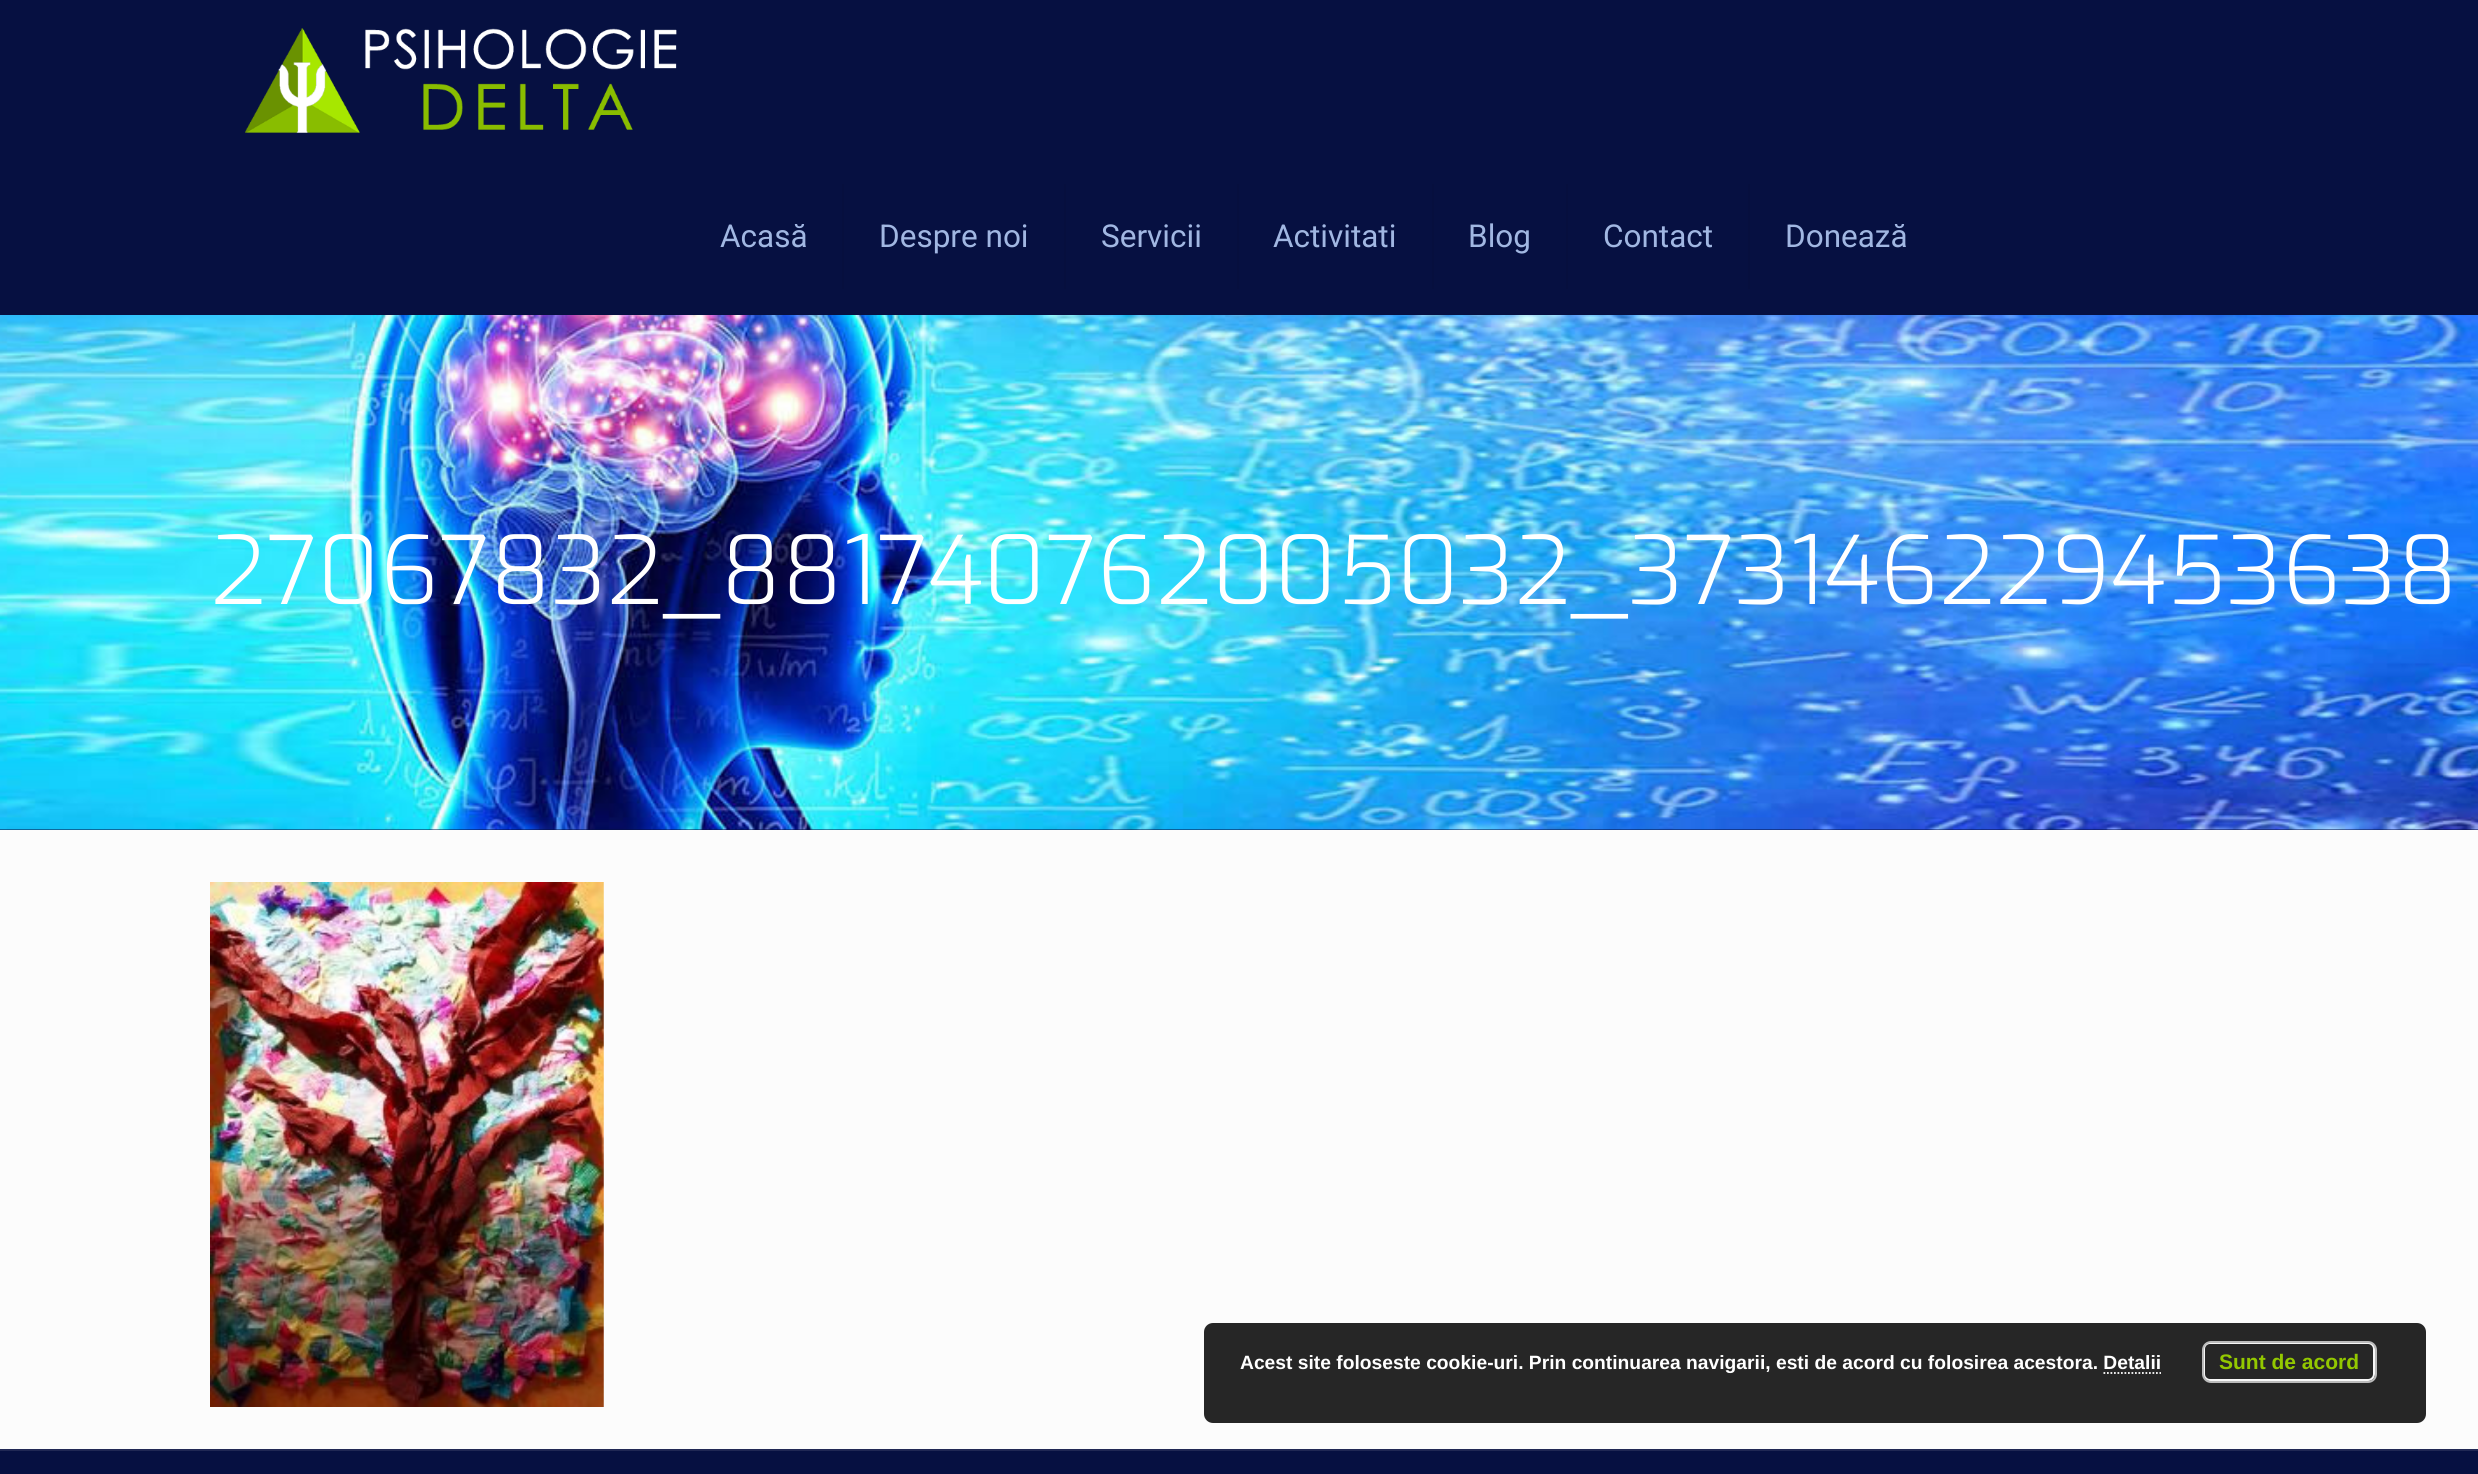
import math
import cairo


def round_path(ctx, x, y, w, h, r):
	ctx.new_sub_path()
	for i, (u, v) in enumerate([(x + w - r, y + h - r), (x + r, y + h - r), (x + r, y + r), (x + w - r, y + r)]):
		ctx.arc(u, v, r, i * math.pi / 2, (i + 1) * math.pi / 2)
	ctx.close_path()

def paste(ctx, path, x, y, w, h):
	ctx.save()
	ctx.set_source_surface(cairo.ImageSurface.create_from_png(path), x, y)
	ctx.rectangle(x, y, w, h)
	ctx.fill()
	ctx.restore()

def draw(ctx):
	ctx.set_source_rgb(0.988, 0.988, 0.988)
	ctx.paint()
	ctx.set_source_rgb(0.027, 0.063, 0.255)
	ctx.rectangle(0, 829, 2478, 1)
	ctx.fill()
	paste(ctx, 'media/1.png', 0, 315, 2478, 515)
	ctx.rectangle(0, 0, 2478, 315)
	ctx.fill()
	paste(ctx, 'media/2.png', 245, 28, 432, 105)
	ctx.set_source_rgb(0.027, 0.059, 0.243)
	ctx.rectangle(842, 184, 2, 105)
	ctx.fill()
	ctx.select_font_face('Roboto')
	ctx.set_font_size(31.5)
	ctx.set_source_rgb(0.631, 0.718, 0.886)
	ctx.move_to(720, 247)
	ctx.show_text('Acasă')
	ctx.set_source_rgb(0.027, 0.059, 0.243)
	ctx.rectangle(1064, 184, 2, 105)
	ctx.fill()
	ctx.set_source_rgb(0.631, 0.718, 0.886)
	ctx.move_to(879, 247)
	ctx.show_text('Despre noi')
	ctx.set_source_rgb(0.027, 0.059, 0.243)
	ctx.rectangle(1237, 184, 2, 105)
	ctx.fill()
	ctx.set_source_rgb(0.631, 0.718, 0.886)
	ctx.move_to(1101, 247)
	ctx.show_text('Servicii')
	ctx.set_source_rgb(0.027, 0.059, 0.243)
	ctx.rectangle(1432, 184, 2, 105)
	ctx.fill()
	ctx.set_source_rgb(0.631, 0.718, 0.886)
	ctx.move_to(1273, 247)
	ctx.show_text('Activitati')
	ctx.set_source_rgb(0.027, 0.059, 0.243)
	ctx.rectangle(1566, 184, 2, 105)
	ctx.fill()
	ctx.set_source_rgb(0.631, 0.718, 0.886)
	ctx.move_to(1468, 247)
	ctx.show_text('Blog')
	ctx.set_source_rgb(0.027, 0.059, 0.243)
	ctx.rectangle(1748, 184, 2, 105)
	ctx.fill()
	ctx.set_source_rgb(0.631, 0.718, 0.886)
	ctx.move_to(1603, 247)
	ctx.show_text('Contact')
	ctx.move_to(1785, 247)
	ctx.show_text('Donează')
	ctx.select_font_face('Exo Light')
	ctx.set_font_size(94.5)
	ctx.set_source_rgb(1, 1, 1)
	ctx.move_to(210, 604)
	ctx.show_text('27067832_881740762005032_373146229453638')
	paste(ctx, 'media/3.png', 210, 882, 394, 525)
	ctx.set_source_rgb(0.027, 0.063, 0.255)
	ctx.rectangle(0, 1451, 2478, 23)
	ctx.fill()
	ctx.set_source_rgb(0.125, 0.157, 0.329)
	ctx.rectangle(0, 1449, 2478, 2)
	ctx.fill()
	ctx.set_source_rgb(0.149, 0.149, 0.149)
	round_path(ctx, 1204, 1323, 1222, 100, 9)
	ctx.fill()
	ctx.select_font_face('Liberation Sans', cairo.FONT_SLANT_NORMAL, cairo.FONT_WEIGHT_BOLD)
	ctx.set_font_size(19.25)
	ctx.set_source_rgb(1, 1, 1)
	ctx.move_to(1240, 1369)
	ctx.show_text('Acest site foloseste cookie-uri. Prin continuarea navigarii, esti de acord cu folosirea acestora. Detalii')
	round_path(ctx, 2204, 1343, 170, 37, 6)
	ctx.set_source_rgb(0.965, 0.965, 0.965)
	ctx.stroke()
	round_path(ctx, 2203, 1342, 173, 40, 8)
	ctx.set_source_rgb(0.733, 0.733, 0.733)
	ctx.stroke()
	ctx.set_font_size(21)
	ctx.set_source_rgb(0.576, 0.784, 0)
	ctx.move_to(2219, 1369)
	ctx.show_text('Sunt de acord')
	ctx.new_path()
	ctx.move_to(2103.5, 1373)
	ctx.line_to(2161, 1373)
	ctx.set_source_rgb(1, 1, 1)
	ctx.set_line_width(1.8)
	ctx.set_dash([1.75, 1.75])
	ctx.stroke()


surface = cairo.ImageSurface(cairo.FORMAT_RGB24, 2478, 1474)
ctx = cairo.Context(surface)
options = cairo.FontOptions()
options.set_hint_metrics(cairo.HINT_METRICS_OFF)
options.set_hint_style(cairo.HINT_STYLE_NONE)
ctx.set_font_options(options)
ctx.set_miter_limit(4)
draw(ctx)
surface.write_to_png('image.png')
